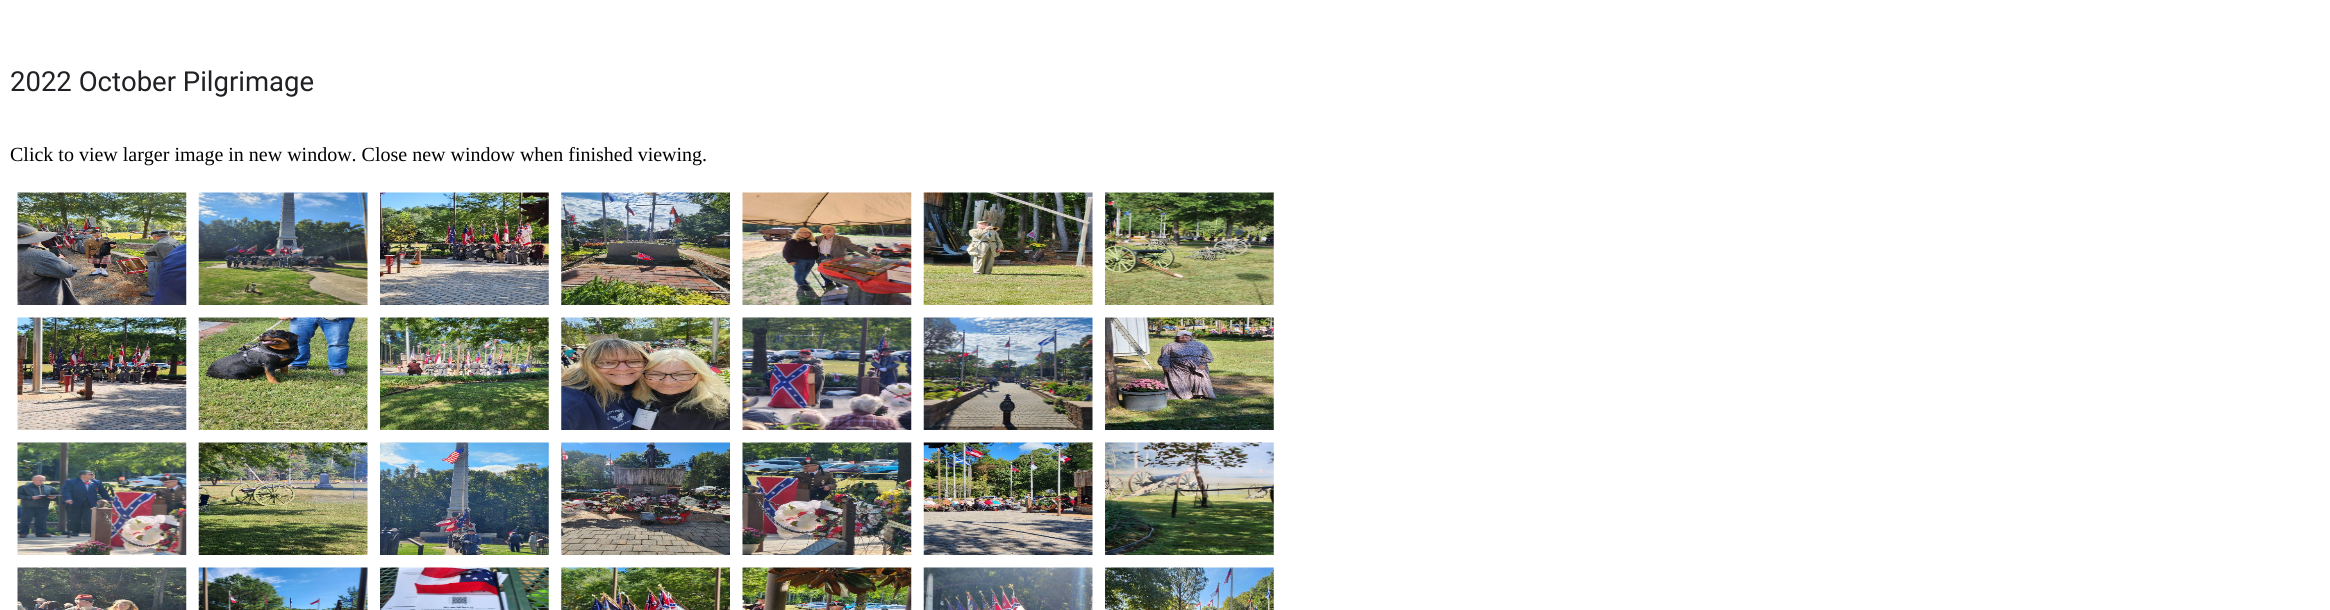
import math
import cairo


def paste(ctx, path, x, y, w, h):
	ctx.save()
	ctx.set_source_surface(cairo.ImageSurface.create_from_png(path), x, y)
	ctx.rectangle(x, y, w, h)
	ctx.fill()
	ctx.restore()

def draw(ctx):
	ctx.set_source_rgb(1, 1, 1)
	ctx.paint()
	ctx.select_font_face('Roboto')
	ctx.set_font_size(27.5)
	ctx.set_source_rgb(0.125, 0.129, 0.141)
	ctx.move_to(10, 91)
	ctx.show_text('2022 October Pilgrimage')
	ctx.select_font_face('Liberation Serif')
	ctx.set_font_size(20)
	ctx.set_source_rgb(0, 0, 0)
	ctx.move_to(10, 161)
	ctx.show_text('Click to view larger image in new window. Close new window when finished viewing.')
	paste(ctx, 'media/1.png', 17, 192, 170, 113)
	paste(ctx, 'media/2.png', 198, 192, 170, 113)
	paste(ctx, 'media/3.png', 380, 192, 169, 113)
	paste(ctx, 'media/4.png', 561, 192, 169, 113)
	paste(ctx, 'media/5.png', 742, 192, 170, 113)
	paste(ctx, 'media/6.png', 923, 192, 170, 113)
	paste(ctx, 'media/7.png', 1105, 192, 169, 113)
	paste(ctx, 'media/8.png', 17, 317, 170, 113)
	paste(ctx, 'media/9.png', 198, 317, 170, 113)
	paste(ctx, 'media/10.png', 380, 317, 169, 113)
	paste(ctx, 'media/11.png', 561, 317, 169, 113)
	paste(ctx, 'media/12.png', 742, 317, 170, 113)
	paste(ctx, 'media/13.png', 923, 317, 170, 113)
	paste(ctx, 'media/14.png', 1105, 317, 169, 113)
	paste(ctx, 'media/15.png', 17, 442, 170, 113)
	paste(ctx, 'media/16.png', 198, 442, 170, 113)
	paste(ctx, 'media/17.png', 380, 442, 169, 113)
	paste(ctx, 'media/18.png', 561, 442, 169, 113)
	paste(ctx, 'media/19.png', 742, 442, 170, 113)
	paste(ctx, 'media/20.png', 923, 442, 170, 113)
	paste(ctx, 'media/21.png', 1105, 442, 169, 113)
	paste(ctx, 'media/22.png', 17, 567, 170, 43)
	paste(ctx, 'media/23.png', 198, 567, 170, 43)
	paste(ctx, 'media/24.png', 380, 567, 169, 43)
	paste(ctx, 'media/25.png', 561, 567, 169, 43)
	paste(ctx, 'media/26.png', 742, 567, 170, 43)
	paste(ctx, 'media/27.png', 923, 567, 170, 43)
	paste(ctx, 'media/28.png', 1105, 567, 169, 43)


surface = cairo.ImageSurface(cairo.FORMAT_RGB24, 2330, 610)
ctx = cairo.Context(surface)
options = cairo.FontOptions()
options.set_hint_metrics(cairo.HINT_METRICS_OFF)
options.set_hint_style(cairo.HINT_STYLE_NONE)
ctx.set_font_options(options)
ctx.set_miter_limit(4)
draw(ctx)
surface.write_to_png('image.png')
